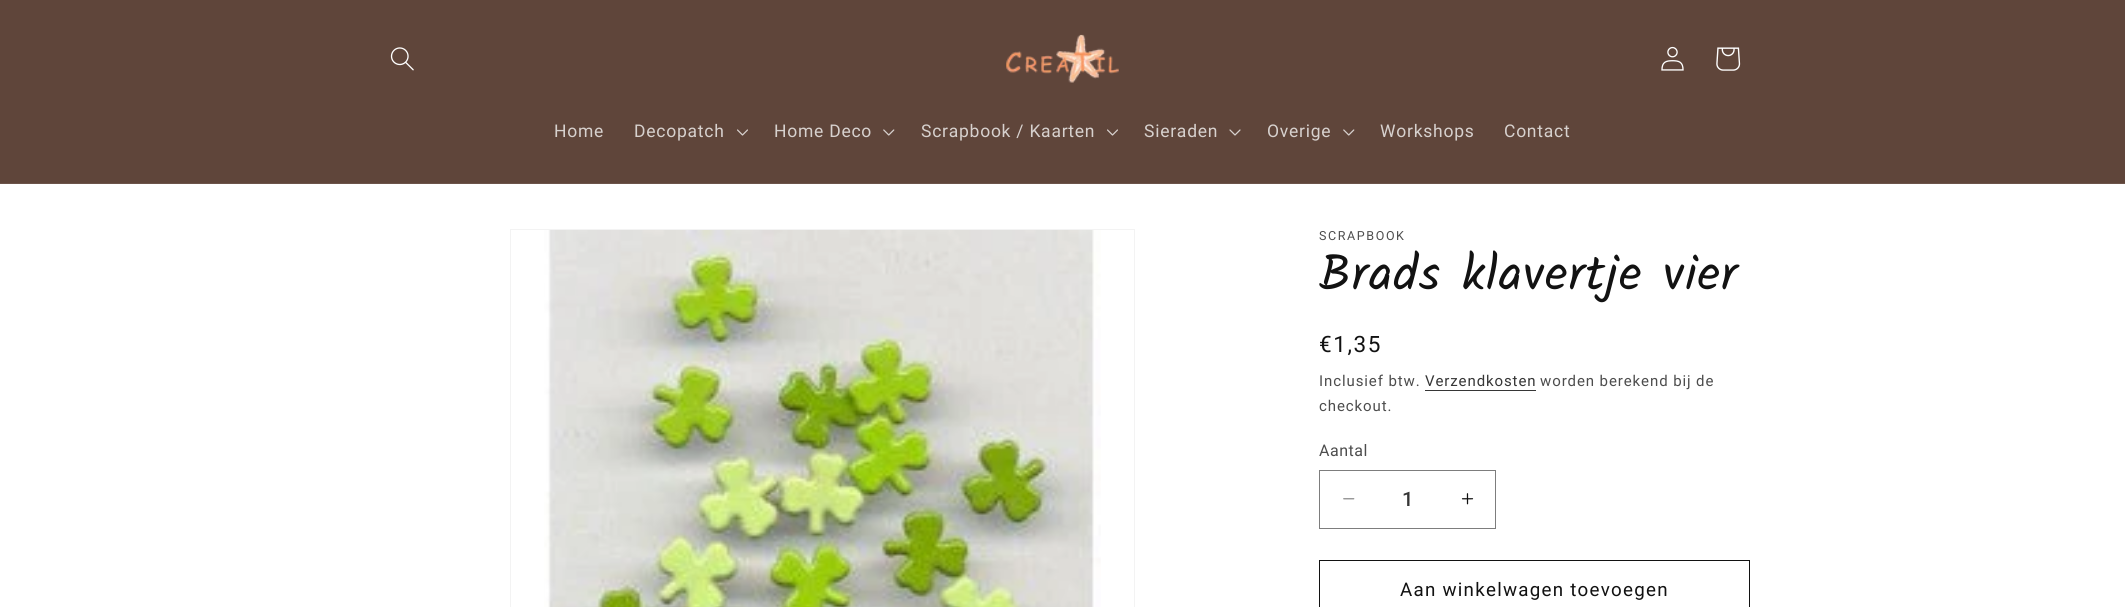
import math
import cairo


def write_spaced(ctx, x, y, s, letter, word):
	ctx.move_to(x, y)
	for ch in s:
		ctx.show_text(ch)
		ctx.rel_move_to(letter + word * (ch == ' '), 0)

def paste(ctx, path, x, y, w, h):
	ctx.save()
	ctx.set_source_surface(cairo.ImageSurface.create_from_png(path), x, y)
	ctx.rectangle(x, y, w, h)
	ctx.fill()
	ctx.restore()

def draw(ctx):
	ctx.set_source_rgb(1, 1, 1)
	ctx.paint()
	ctx.set_source_rgb(0.373, 0.271, 0.227)
	ctx.rectangle(0, 0, 2125, 183)
	ctx.fill()
	ctx.set_source_rgb(0.424, 0.329, 0.29)
	ctx.rectangle(0, 183, 2125, 1)
	ctx.fill()
	paste(ctx, 'media/1.png', 390, 47, 24, 24)
	paste(ctx, 'media/2.png', 1006, 34, 113, 49)
	paste(ctx, 'media/3.png', 1661, 46, 23, 25)
	paste(ctx, 'media/4.png', 1716, 47, 25, 24)
	ctx.select_font_face('Roboto')
	ctx.set_font_size(17.5)
	ctx.set_source_rgb(0.843, 0.82, 0.808)
	write_spaced(ctx, 554, 137, 'Home', 0.75, 0)
	write_spaced(ctx, 634, 137, 'Decopatch', 0.75, 0)
	paste(ctx, 'media/5.png', 737, 129, 11, 7)
	write_spaced(ctx, 774, 137, 'Home Deco', 0.75, 0)
	paste(ctx, 'media/6.png', 883, 129, 12, 7)
	write_spaced(ctx, 921, 137, 'Scrapbook / Kaarten', 0.75, 0)
	paste(ctx, 'media/5.png', 1107, 129, 11, 7)
	write_spaced(ctx, 1144, 137, 'Sieraden', 0.75, 0)
	paste(ctx, 'media/7.png', 1229, 129, 12, 7)
	write_spaced(ctx, 1267, 137, 'Overige', 0.75, 0)
	paste(ctx, 'media/6.png', 1343, 129, 12, 7)
	write_spaced(ctx, 1380, 137, 'Workshops', 0.75, 0)
	write_spaced(ctx, 1504, 137, 'Contact', 0.75, 0)
	ctx.rectangle(510.5, 229.5, 624, 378)
	ctx.set_source_rgb(0.953, 0.953, 0.953)
	ctx.set_line_width(1)
	ctx.stroke()
	paste(ctx, 'media/8.png', 544, 230, 557, 377)
	ctx.set_font_size(12.5)
	ctx.set_source_rgb(0.302, 0.302, 0.302)
	write_spaced(ctx, 1319, 240, 'SCRAPBOOK', 1.6, 0)
	ctx.select_font_face('Kalam')
	ctx.set_font_size(50)
	ctx.set_source_rgb(0.071, 0.071, 0.071)
	write_spaced(ctx, 1319, 290, 'Brads klavertje vier', 0.75, 0)
	ctx.select_font_face('Roboto')
	ctx.set_font_size(22.5)
	write_spaced(ctx, 1319, 352, '€1,35', 1.6, 0)
	ctx.set_font_size(15)
	ctx.set_source_rgb(0.302, 0.302, 0.302)
	write_spaced(ctx, 1319, 386, 'Inclusief btw.', 0.9, 0)
	ctx.set_source_rgb(0.212, 0.212, 0.212)
	write_spaced(ctx, 1425, 386, 'Verzendkosten', 0.9, 0)
	ctx.rectangle(1425, 390, 111, 1)
	ctx.fill()
	ctx.set_source_rgb(0.302, 0.302, 0.302)
	write_spaced(ctx, 1540, 386, 'worden berekend bij de', 0.9, 0)
	write_spaced(ctx, 1319, 411, 'checkout.', 0.9, 0)
	ctx.set_font_size(16)
	write_spaced(ctx, 1319, 456, 'Aantal', 0.5, 0)
	paste(ctx, 'media/9.png', 1343, 498, 12, 2)
	paste(ctx, 'media/10.png', 1461, 493, 13, 12)
	ctx.rectangle(1319.5, 470.5, 176, 58)
	ctx.set_source_rgb(0.49, 0.49, 0.49)
	ctx.stroke()
	ctx.select_font_face('Roboto Medium')
	ctx.set_font_size(20)
	ctx.set_source_rgb(0.212, 0.212, 0.212)
	ctx.move_to(1402, 506)
	ctx.show_text('1')
	ctx.rectangle(1319.5, 560.5, 430, 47)
	ctx.set_source_rgb(0.071, 0.071, 0.071)
	ctx.stroke()
	ctx.select_font_face('Roboto')
	ctx.set_font_size(18.75)
	write_spaced(ctx, 1400, 596, 'Aan winkelwagen toevoegen', 1.25, 0)


surface = cairo.ImageSurface(cairo.FORMAT_RGB24, 2125, 607)
ctx = cairo.Context(surface)
options = cairo.FontOptions()
options.set_hint_metrics(cairo.HINT_METRICS_OFF)
options.set_hint_style(cairo.HINT_STYLE_NONE)
ctx.set_font_options(options)
ctx.set_miter_limit(4)
draw(ctx)
surface.write_to_png('image.png')
